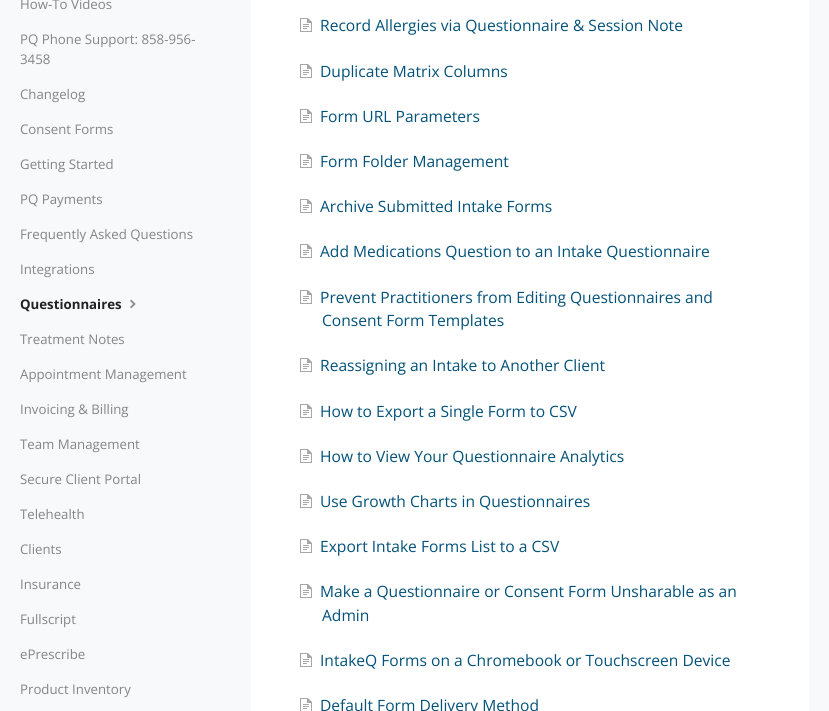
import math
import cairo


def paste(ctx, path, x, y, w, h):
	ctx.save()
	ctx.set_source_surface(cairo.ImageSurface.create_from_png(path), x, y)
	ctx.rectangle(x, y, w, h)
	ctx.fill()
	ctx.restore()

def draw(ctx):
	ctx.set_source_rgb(0.969, 0.976, 0.98)
	ctx.paint()
	ctx.select_font_face('Open Sans')
	ctx.set_font_size(13.25)
	ctx.set_source_rgb(0.522, 0.522, 0.522)
	for x, y, s in [
		(20, 9, 'How-To Videos'),
		(20, 44, 'PQ Phone Support: 858-956-'),
		(20, 64, '3458'),
		(20, 99, 'Changelog'),
		(20, 134, 'Consent Forms'),
		(20, 169, 'Getting Started'),
		(20, 204, 'PQ Payments'),
		(20, 239, 'Frequently Asked Questions'),
		(20, 274, 'Integrations'),
	]:
		ctx.move_to(x, y)
		ctx.show_text(s)
	ctx.select_font_face('Open Sans', cairo.FONT_SLANT_NORMAL, cairo.FONT_WEIGHT_BOLD)
	ctx.set_source_rgb(0.133, 0.133, 0.133)
	ctx.move_to(20, 309)
	ctx.show_text('Questionnaires')
	paste(ctx, 'media/1.png', 130, 299, 6, 10)
	ctx.select_font_face('Open Sans')
	ctx.set_source_rgb(0.522, 0.522, 0.522)
	for x, y, s in [
		(20, 344, 'Treatment Notes'),
		(20, 379, 'Appointment Management'),
		(20, 414, 'Invoicing & Billing'),
		(20, 449, 'Team Management'),
		(20, 484, 'Secure Client Portal'),
		(20, 519, 'Telehealth'),
		(20, 554, 'Clients'),
		(20, 589, 'Insurance'),
		(20, 624, 'Fullscript'),
		(20, 659, 'ePrescribe'),
		(20, 694, 'Product Inventory'),
	]:
		ctx.move_to(x, y)
		ctx.show_text(s)
	ctx.set_source_rgb(1, 1, 1)
	ctx.rectangle(251, 0, 558, 711)
	ctx.fill()
	paste(ctx, 'media/2.png', 300, 18, 12, 14)
	ctx.set_font_size(15.6)
	ctx.set_source_rgb(0.012, 0.322, 0.478)
	ctx.move_to(320, 31)
	ctx.show_text('Record Allergies via Questionnaire & Session Note')
	paste(ctx, 'media/2.png', 300, 64, 12, 14)
	ctx.move_to(320, 77)
	ctx.show_text('Duplicate Matrix Columns')
	paste(ctx, 'media/2.png', 300, 109, 12, 14)
	ctx.move_to(320, 122)
	ctx.show_text('Form URL Parameters')
	paste(ctx, 'media/2.png', 300, 154, 12, 14)
	ctx.move_to(320, 167)
	ctx.show_text('Form Folder Management')
	paste(ctx, 'media/2.png', 300, 199, 12, 14)
	ctx.move_to(320, 212)
	ctx.show_text('Archive Submitted Intake Forms')
	paste(ctx, 'media/2.png', 300, 244, 12, 14)
	ctx.move_to(320, 257)
	ctx.show_text('Add Medications Question to an Intake Questionnaire')
	paste(ctx, 'media/2.png', 300, 290, 12, 14)
	ctx.move_to(320, 303)
	ctx.show_text('Prevent Practitioners from Editing Questionnaires and')
	ctx.move_to(322, 326)
	ctx.show_text('Consent Form Templates')
	paste(ctx, 'media/2.png', 300, 358, 12, 14)
	ctx.move_to(320, 371)
	ctx.show_text('Reassigning an Intake to Another Client')
	paste(ctx, 'media/2.png', 300, 404, 12, 14)
	ctx.move_to(320, 417)
	ctx.show_text('How to Export a Single Form to CSV')
	paste(ctx, 'media/2.png', 300, 449, 12, 14)
	ctx.move_to(320, 462)
	ctx.show_text('How to View Your Questionnaire Analytics')
	paste(ctx, 'media/2.png', 300, 494, 12, 14)
	ctx.move_to(320, 507)
	ctx.show_text('Use Growth Charts in Questionnaires')
	paste(ctx, 'media/2.png', 300, 539, 12, 14)
	ctx.move_to(320, 552)
	ctx.show_text('Export Intake Forms List to a CSV')
	paste(ctx, 'media/2.png', 300, 584, 12, 14)
	ctx.move_to(320, 597)
	ctx.show_text('Make a Questionnaire or Consent Form Unsharable as an')
	ctx.move_to(322, 621)
	ctx.show_text('Admin')
	paste(ctx, 'media/2.png', 300, 653, 12, 14)
	ctx.move_to(320, 666)
	ctx.show_text('IntakeQ Forms on a Chromebook or Touchscreen Device')
	paste(ctx, 'media/3.png', 300, 698, 12, 13)
	ctx.move_to(320, 711)
	ctx.show_text('Default Form Delivery Method')


surface = cairo.ImageSurface(cairo.FORMAT_RGB24, 829, 711)
ctx = cairo.Context(surface)
options = cairo.FontOptions()
options.set_hint_metrics(cairo.HINT_METRICS_OFF)
options.set_hint_style(cairo.HINT_STYLE_NONE)
ctx.set_font_options(options)
ctx.set_miter_limit(4)
draw(ctx)
surface.write_to_png('image.png')
